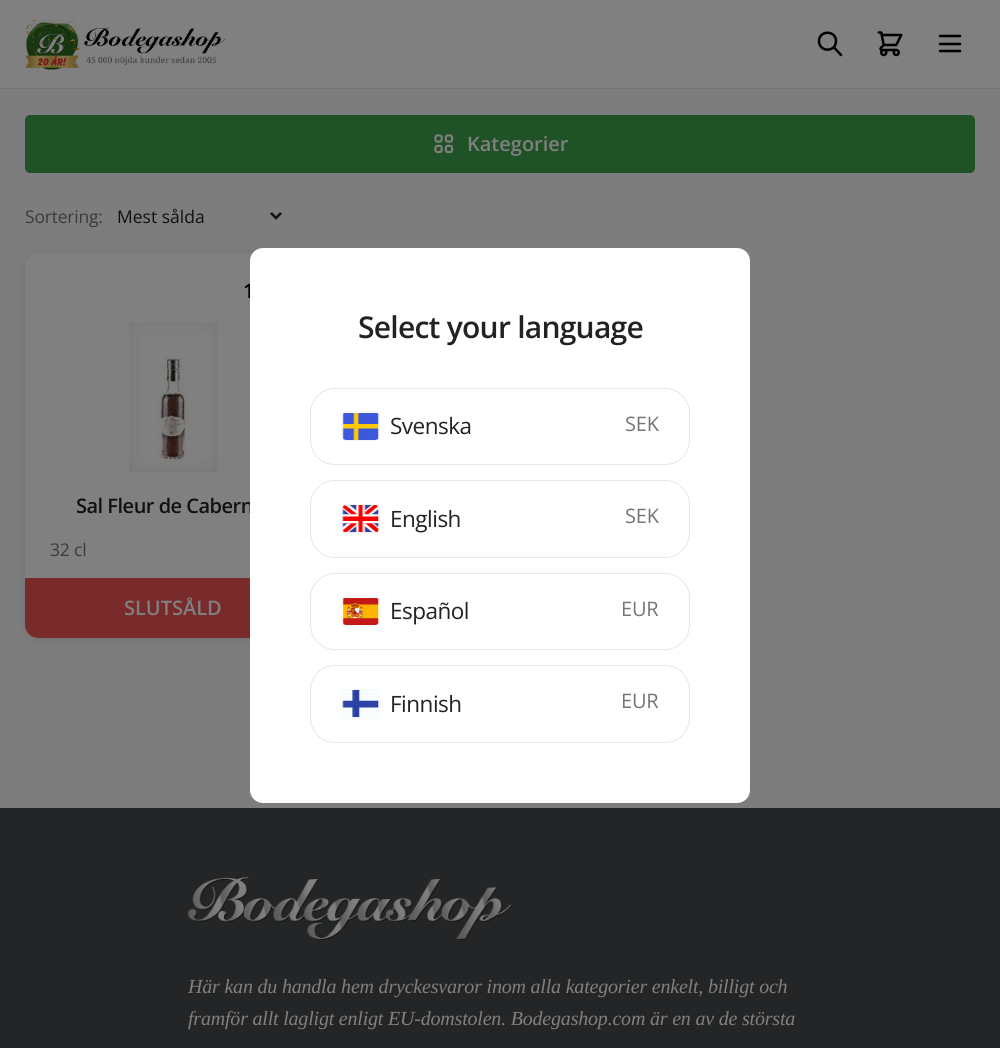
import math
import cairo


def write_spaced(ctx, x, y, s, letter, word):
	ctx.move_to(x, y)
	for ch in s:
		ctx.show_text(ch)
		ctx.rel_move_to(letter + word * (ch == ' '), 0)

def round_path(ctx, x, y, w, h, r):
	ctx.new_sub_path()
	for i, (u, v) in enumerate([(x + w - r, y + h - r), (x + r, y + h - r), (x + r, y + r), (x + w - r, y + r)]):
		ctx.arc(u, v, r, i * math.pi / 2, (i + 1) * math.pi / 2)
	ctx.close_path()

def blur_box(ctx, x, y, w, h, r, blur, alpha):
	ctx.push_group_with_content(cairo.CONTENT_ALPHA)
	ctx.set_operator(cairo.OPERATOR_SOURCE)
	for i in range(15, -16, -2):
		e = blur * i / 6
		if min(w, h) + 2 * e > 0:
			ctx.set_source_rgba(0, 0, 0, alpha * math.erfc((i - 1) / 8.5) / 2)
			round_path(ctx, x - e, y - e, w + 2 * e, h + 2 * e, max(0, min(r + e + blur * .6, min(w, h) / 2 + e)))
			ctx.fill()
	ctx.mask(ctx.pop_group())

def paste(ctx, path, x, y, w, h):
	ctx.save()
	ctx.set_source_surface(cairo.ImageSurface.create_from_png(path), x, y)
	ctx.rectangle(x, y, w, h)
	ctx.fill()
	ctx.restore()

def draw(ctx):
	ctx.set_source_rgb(0.49, 0.49, 0.49)
	ctx.paint()
	ctx.set_source_rgb(0.451, 0.455, 0.463)
	ctx.rectangle(0, 88, 1000, 1)
	ctx.fill()
	ctx.set_source_rgb(0.502, 0.502, 0.502)
	ctx.rectangle(0, 0, 1000, 88)
	ctx.fill()
	paste(ctx, 'media/1.png', 25, 19, 200, 51)
	ctx.new_path()
	ctx.move_to(841, 55)
	ctx.line_to(834, 47.5)
	ctx.move_to(836, 41)
	ctx.curve_to(836, 52.5, 819, 52.5, 819, 41)
	ctx.curve_to(819, 30, 836, 30, 836, 41)
	ctx.close_path()
	ctx.set_source_rgb(0, 0, 0)
	ctx.set_line_width(2.5)
	ctx.set_line_cap(cairo.LINE_CAP_ROUND)
	ctx.set_line_join(cairo.LINE_JOIN_ROUND)
	ctx.stroke()
	paste(ctx, 'media/2.png', 877, 31, 26, 26)
	ctx.new_path()
	ctx.move_to(940, 36)
	ctx.line_to(960, 36)
	ctx.move_to(940, 44)
	ctx.line_to(960, 44)
	ctx.move_to(940, 51)
	ctx.line_to(960, 51)
	ctx.stroke()
	ctx.set_source_rgb(0.122, 0.322, 0.149)
	round_path(ctx, 25.5, 115.5, 949, 57, 4.5)
	ctx.fill_preserve()
	ctx.set_line_width(1)
	ctx.set_line_cap(cairo.LINE_CAP_BUTT)
	ctx.set_line_join(cairo.LINE_JOIN_MITER)
	ctx.stroke()
	paste(ctx, 'media/3.png', 434, 134, 20, 20)
	ctx.select_font_face('Open Sans SemiBold')
	ctx.set_font_size(20)
	ctx.set_source_rgb(0.502, 0.502, 0.502)
	ctx.move_to(467, 151)
	ctx.show_text('Kategorier')
	ctx.select_font_face('Open Sans')
	ctx.set_font_size(17.5)
	ctx.set_source_rgb(0.231, 0.231, 0.231)
	write_spaced(ctx, 25, 223, 'Sortering:', -0.2, 0)
	ctx.new_path()
	ctx.move_to(271, 213)
	ctx.line_to(276, 218)
	ctx.line_to(281, 213)
	ctx.set_source_rgb(0.067, 0.067, 0.067)
	ctx.set_line_width(2.5)
	ctx.stroke()
	ctx.move_to(117, 223)
	ctx.show_text('Mest sålda')
	ctx.set_source_rgb(0, 0, 0)
	blur_box(ctx, 25, 255, 296, 385, 13, 5, 0.1)
	ctx.set_source_rgb(0.502, 0.502, 0.502)
	round_path(ctx, 25, 253, 296, 385, 13)
	ctx.fill()
	ctx.select_font_face('Open Sans SemiBold')
	ctx.set_font_size(20)
	ctx.set_source_rgb(0, 0, 0)
	write_spaced(ctx, 243, 298, '1', -0.5, 0)
	paste(ctx, 'media/4.png', 129, 322, 89, 151)
	ctx.set_source_rgb(0.067, 0.067, 0.067)
	write_spaced(ctx, 76, 513, 'Sal Fleur de Cabern', -0.5, 0)
	ctx.select_font_face('Open Sans')
	ctx.set_font_size(17.5)
	ctx.set_source_rgb(0.231, 0.231, 0.231)
	write_spaced(ctx, 50, 556, '32 cl', -0.2, 0)
	ctx.set_source_rgb(0.475, 0.169, 0.169)
	ctx.new_path()
	ctx.move_to(25, 578)
	ctx.line_to(321, 578)
	ctx.line_to(321, 625)
	ctx.curve_to(321, 632, 315, 638, 308, 638)
	ctx.line_to(38, 638)
	ctx.curve_to(31, 638, 25, 632, 25, 625)
	ctx.close_path()
	ctx.fill()
	ctx.select_font_face('Open Sans SemiBold')
	ctx.set_font_size(20)
	ctx.set_source_rgb(0.502, 0.502, 0.502)
	ctx.move_to(124, 615)
	ctx.show_text('SLUTSÅLD')
	ctx.set_source_rgb(1, 1, 1)
	round_path(ctx, 250, 248, 500, 555, 13)
	ctx.fill()
	ctx.set_font_size(30)
	ctx.set_source_rgb(0.133, 0.133, 0.133)
	write_spaced(ctx, 358, 338, 'Select your language', -0.75, 0)
	round_path(ctx, 310.5, 388.5, 379, 76, 24.5)
	ctx.set_source_rgb(0.898, 0.906, 0.922)
	ctx.set_line_width(1)
	ctx.stroke()
	round_path(ctx, 341.5, 411.5, 38, 29, 4.5)
	ctx.set_source_rgb(0.961, 0.961, 0.961)
	ctx.stroke()
	paste(ctx, 'media/5.png', 342, 413, 37, 27)
	ctx.select_font_face('Open Sans')
	ctx.set_font_size(22.5)
	ctx.set_source_rgb(0.133, 0.133, 0.133)
	write_spaced(ctx, 390, 434, 'Svenska', -0.5, 0)
	ctx.set_font_size(20)
	ctx.set_source_rgb(0.459, 0.459, 0.459)
	write_spaced(ctx, 625, 431, 'SEK', -0.2, 0)
	round_path(ctx, 310.5, 480.5, 379, 77, 24.5)
	ctx.set_source_rgb(0.898, 0.906, 0.922)
	ctx.stroke()
	round_path(ctx, 341.5, 504.5, 38, 29, 4.5)
	ctx.set_source_rgb(0.961, 0.961, 0.961)
	ctx.stroke()
	paste(ctx, 'media/6.png', 342, 505, 37, 28)
	ctx.set_font_size(22.5)
	ctx.set_source_rgb(0.133, 0.133, 0.133)
	write_spaced(ctx, 390, 527, 'English', -0.5, 0)
	ctx.set_font_size(20)
	ctx.set_source_rgb(0.459, 0.459, 0.459)
	write_spaced(ctx, 625, 523, 'SEK', -0.2, 0)
	round_path(ctx, 310.5, 573.5, 379, 76, 24.5)
	ctx.set_source_rgb(0.898, 0.906, 0.922)
	ctx.stroke()
	round_path(ctx, 341.5, 596.5, 38, 29, 4.5)
	ctx.set_source_rgb(0.961, 0.961, 0.961)
	ctx.stroke()
	paste(ctx, 'media/7.png', 342, 598, 37, 27)
	ctx.set_font_size(22.5)
	ctx.set_source_rgb(0.133, 0.133, 0.133)
	write_spaced(ctx, 390, 619, 'Español', -0.5, 0)
	ctx.set_font_size(20)
	ctx.set_source_rgb(0.459, 0.459, 0.459)
	write_spaced(ctx, 621, 616, 'EUR', -0.2, 0)
	round_path(ctx, 310.5, 665.5, 379, 77, 24.5)
	ctx.set_source_rgb(0.898, 0.906, 0.922)
	ctx.stroke()
	round_path(ctx, 341.5, 689.5, 38, 29, 4.5)
	ctx.set_source_rgb(0.961, 0.961, 0.961)
	ctx.stroke()
	paste(ctx, 'media/8.png', 342, 690, 37, 28)
	ctx.set_font_size(22.5)
	ctx.set_source_rgb(0.133, 0.133, 0.133)
	write_spaced(ctx, 390, 712, 'Finnish', -0.5, 0)
	ctx.set_font_size(20)
	ctx.set_source_rgb(0.459, 0.459, 0.459)
	write_spaced(ctx, 621, 708, 'EUR', -0.2, 0)
	ctx.set_source_rgb(0.137, 0.145, 0.153)
	ctx.rectangle(0, 808, 1000, 240)
	ctx.fill()
	paste(ctx, 'media/9.png', 187, 877, 325, 63)
	ctx.select_font_face('Liberation Serif', cairo.FONT_SLANT_ITALIC)
	ctx.set_source_rgb(0.502, 0.502, 0.502)
	write_spaced(ctx, 188, 993, 'Här kan du handla hem dryckesvaror inom alla kategorier enkelt, billigt och', -0.2, 0)
	write_spaced(ctx, 188, 1025, 'framför allt lagligt enligt EU-domstolen. Bodegashop.com är en av de största', -0.2, 0)


surface = cairo.ImageSurface(cairo.FORMAT_RGB24, 1000, 1048)
ctx = cairo.Context(surface)
options = cairo.FontOptions()
options.set_hint_metrics(cairo.HINT_METRICS_OFF)
options.set_hint_style(cairo.HINT_STYLE_NONE)
ctx.set_font_options(options)
ctx.set_miter_limit(4)
draw(ctx)
surface.write_to_png('image.png')
